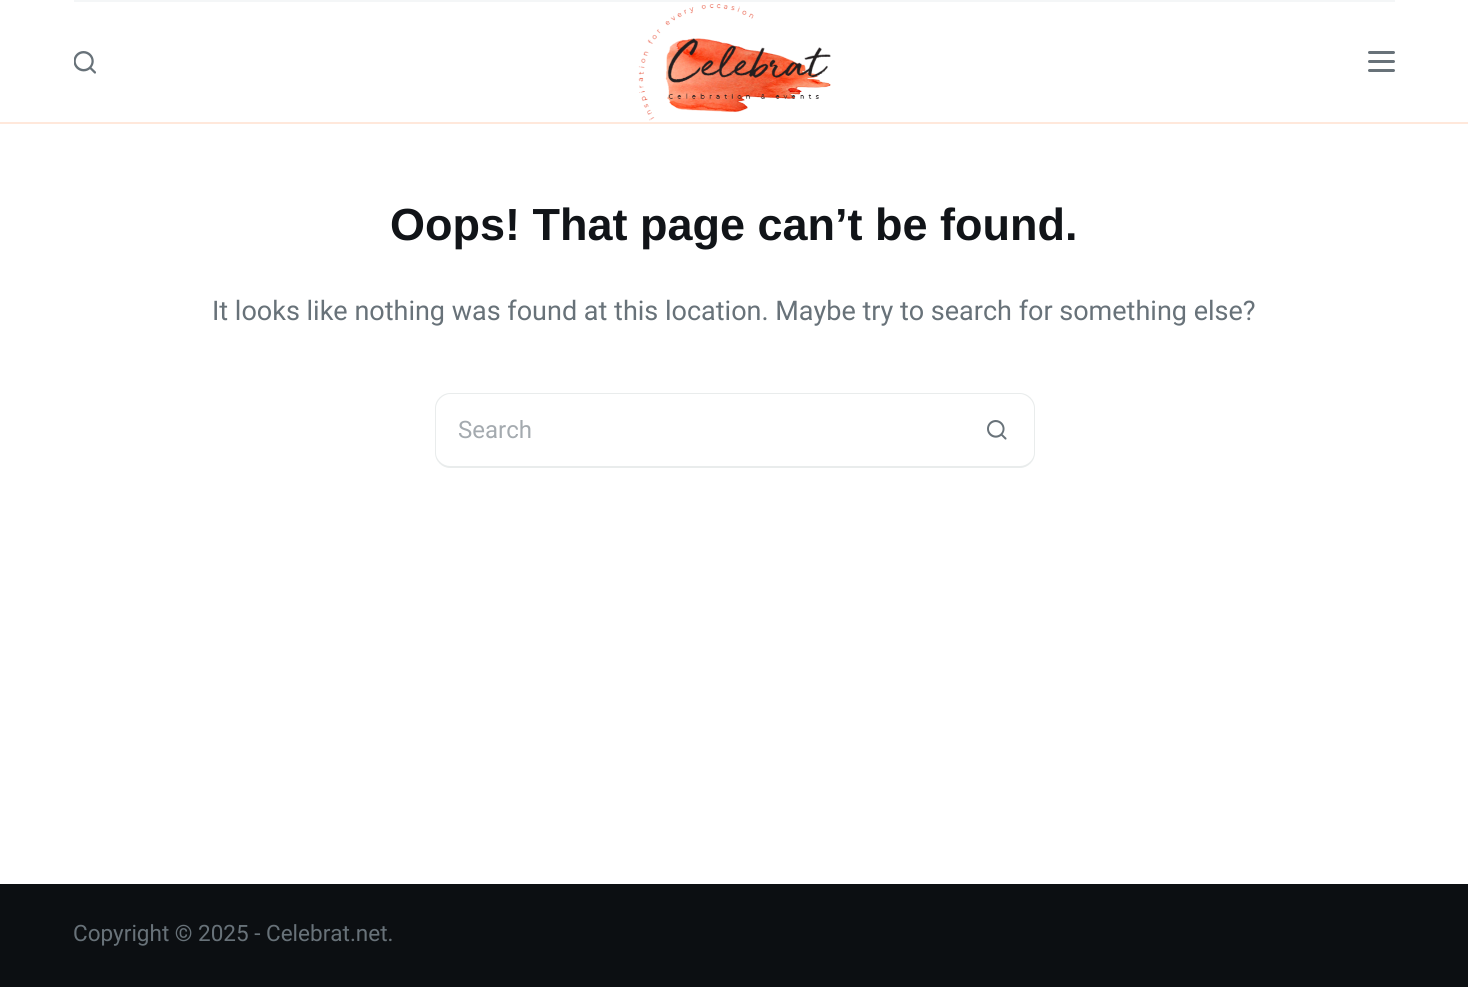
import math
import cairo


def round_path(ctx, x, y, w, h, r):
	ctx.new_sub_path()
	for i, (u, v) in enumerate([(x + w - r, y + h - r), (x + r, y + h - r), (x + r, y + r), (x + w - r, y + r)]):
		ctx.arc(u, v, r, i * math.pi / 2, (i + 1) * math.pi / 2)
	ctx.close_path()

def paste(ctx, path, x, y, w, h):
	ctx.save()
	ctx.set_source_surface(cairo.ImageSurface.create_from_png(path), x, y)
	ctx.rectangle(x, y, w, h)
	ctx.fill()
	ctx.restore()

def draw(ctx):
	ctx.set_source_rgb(1, 1, 1)
	ctx.paint()
	ctx.set_source_rgb(1, 0.91, 0.859)
	ctx.rectangle(0, 122, 1468, 2)
	ctx.fill()
	ctx.set_source_rgb(0.957, 0.961, 0.965)
	ctx.rectangle(74, 0, 1321, 2)
	ctx.fill()
	paste(ctx, 'media/1.png', 74, 51, 22, 23)
	paste(ctx, 'media/2.png', 638, 4, 193, 117)
	ctx.set_source_rgb(0.408, 0.447, 0.475)
	round_path(ctx, 1368, 51, 27, 3, 1.5)
	ctx.fill()
	round_path(ctx, 1368, 60, 27, 3, 1.5)
	ctx.fill()
	round_path(ctx, 1368, 69, 27, 3, 1.5)
	ctx.fill()
	ctx.select_font_face('Liberation Sans', cairo.FONT_SLANT_NORMAL, cairo.FONT_WEIGHT_BOLD)
	ctx.set_font_size(45)
	ctx.set_source_rgb(0.067, 0.082, 0.094)
	ctx.move_to(390, 240)
	ctx.show_text('Oops! That page can’t be found.')
	ctx.select_font_face('Roboto')
	ctx.set_font_size(27)
	ctx.set_source_rgb(0.408, 0.447, 0.475)
	ctx.move_to(212, 320)
	ctx.show_text('It looks like nothing was found at this location. Maybe try to search for something else?')
	ctx.set_source_rgb(0.914, 0.922, 0.925)
	ctx.set_fill_rule(cairo.FILL_RULE_EVEN_ODD)
	ctx.new_path()
	ctx.move_to(450, 393)
	ctx.line_to(960, 393)
	ctx.line_to(960, 468)
	ctx.line_to(450, 468)
	ctx.curve_to(442, 468, 435, 461, 435, 453)
	ctx.line_to(435, 408)
	ctx.curve_to(435, 400, 442, 393, 450, 393)
	ctx.close_path()
	ctx.move_to(450, 394)
	ctx.line_to(960, 394)
	ctx.line_to(960, 466)
	ctx.line_to(450, 466)
	ctx.curve_to(443, 466, 436, 460, 436, 453)
	ctx.line_to(436, 408)
	ctx.curve_to(436, 401, 443, 394, 450, 394)
	ctx.close_path()
	ctx.fill()
	ctx.set_font_size(24)
	ctx.set_source_rgb(0.643, 0.667, 0.686)
	ctx.move_to(458, 438)
	ctx.show_text('Search')
	ctx.set_source_rgb(0.914, 0.922, 0.925)
	ctx.new_path()
	ctx.move_to(960, 393)
	ctx.line_to(1020, 393)
	ctx.curve_to(1028, 393, 1035, 400, 1035, 408)
	ctx.line_to(1035, 453)
	ctx.curve_to(1035, 461, 1028, 468, 1020, 468)
	ctx.line_to(960, 468)
	ctx.close_path()
	ctx.move_to(960, 394)
	ctx.line_to(1020, 394)
	ctx.curve_to(1027, 394, 1034, 401, 1034, 408)
	ctx.line_to(1034, 453)
	ctx.curve_to(1034, 460, 1027, 466, 1020, 466)
	ctx.line_to(960, 466)
	ctx.close_path()
	ctx.fill()
	paste(ctx, 'media/3.png', 987, 420, 20, 20)
	ctx.set_source_rgb(0.047, 0.059, 0.071)
	ctx.rectangle(0, 884, 1468, 103)
	ctx.fill()
	ctx.set_font_size(22.5)
	ctx.set_source_rgb(0.408, 0.447, 0.475)
	ctx.move_to(73, 941)
	ctx.show_text('Copyright © 2025 - Celebrat.net.')


surface = cairo.ImageSurface(cairo.FORMAT_RGB24, 1468, 987)
ctx = cairo.Context(surface)
options = cairo.FontOptions()
options.set_hint_metrics(cairo.HINT_METRICS_OFF)
options.set_hint_style(cairo.HINT_STYLE_NONE)
ctx.set_font_options(options)
ctx.set_miter_limit(4)
draw(ctx)
surface.write_to_png('image.png')
